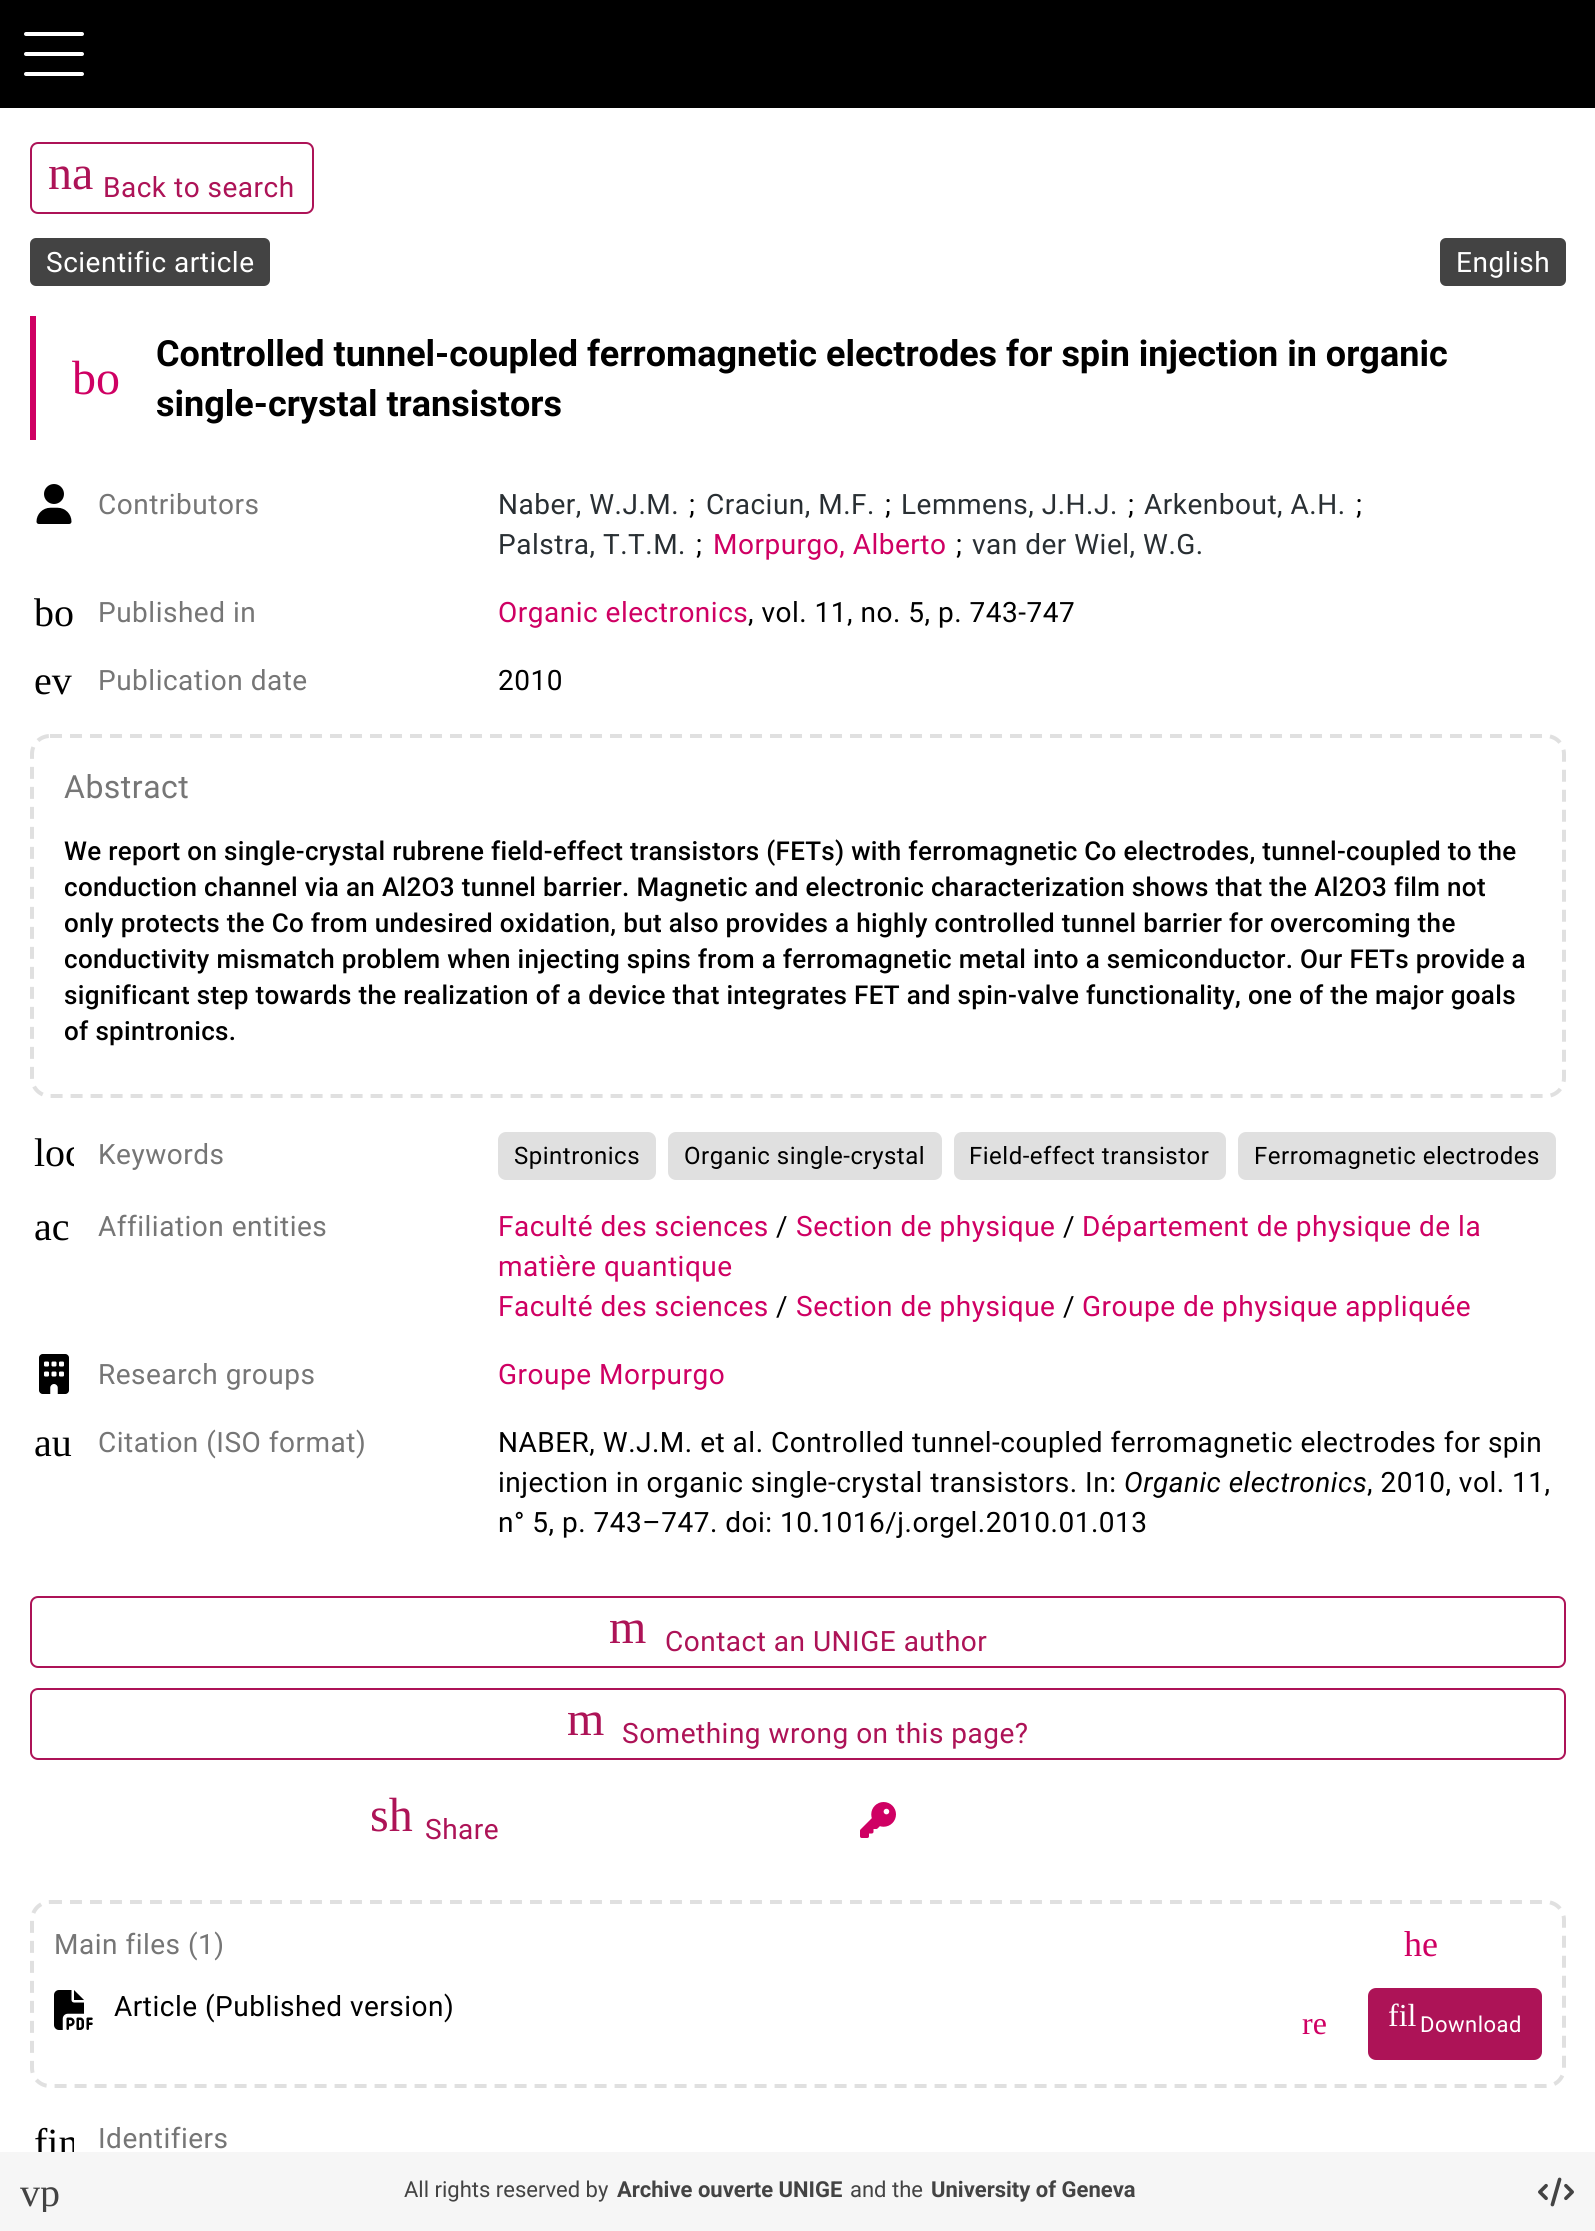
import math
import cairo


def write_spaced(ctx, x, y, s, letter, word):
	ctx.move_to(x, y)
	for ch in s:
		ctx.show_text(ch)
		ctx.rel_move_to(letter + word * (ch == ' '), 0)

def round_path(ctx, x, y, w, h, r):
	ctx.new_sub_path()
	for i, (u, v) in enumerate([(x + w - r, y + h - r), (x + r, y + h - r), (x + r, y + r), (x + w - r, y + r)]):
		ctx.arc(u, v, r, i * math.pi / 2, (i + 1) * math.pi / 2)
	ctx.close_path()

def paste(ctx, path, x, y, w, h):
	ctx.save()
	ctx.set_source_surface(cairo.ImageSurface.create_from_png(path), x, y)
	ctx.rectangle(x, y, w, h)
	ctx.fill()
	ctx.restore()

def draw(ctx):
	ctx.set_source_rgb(1, 1, 1)
	ctx.paint()
	ctx.set_source_rgb(0, 0, 0)
	ctx.rectangle(0, 0, 1595, 108)
	ctx.fill()
	ctx.set_source_rgb(1, 1, 1)
	round_path(ctx, 24, 32, 60, 4, 2)
	ctx.fill()
	round_path(ctx, 24, 52, 60, 4, 2)
	ctx.fill()
	round_path(ctx, 24, 72, 60, 4, 2)
	ctx.fill()
	round_path(ctx, 31, 143, 282, 70, 7)
	ctx.set_source_rgb(0.678, 0.078, 0.341)
	ctx.stroke()
	ctx.select_font_face('Liberation Serif')
	ctx.set_font_size(48)
	ctx.move_to(48, 189)
	ctx.show_text('na')
	ctx.select_font_face('Roboto')
	ctx.set_font_size(28)
	write_spaced(ctx, 103, 197, 'Back to search', 0.5, 0)
	ctx.set_source_rgb(0.263, 0.263, 0.263)
	round_path(ctx, 30, 238, 240, 48, 6)
	ctx.fill()
	ctx.set_source_rgb(1, 1, 1)
	write_spaced(ctx, 46, 272, 'Scientific article', 0.5, 0)
	ctx.set_source_rgb(0.263, 0.263, 0.263)
	round_path(ctx, 1440, 238, 126, 48, 6)
	ctx.fill()
	ctx.set_source_rgb(1, 1, 1)
	write_spaced(ctx, 1456, 272, 'English', 0.5, 0)
	ctx.set_source_rgb(0.812, 0, 0.388)
	ctx.rectangle(30, 316, 6, 124)
	ctx.fill()
	ctx.select_font_face('Liberation Serif')
	ctx.set_font_size(48)
	ctx.move_to(72, 394)
	ctx.show_text('bo')
	ctx.select_font_face('Roboto', cairo.FONT_SLANT_NORMAL, cairo.FONT_WEIGHT_BOLD)
	ctx.set_font_size(36)
	ctx.set_source_rgb(0, 0, 0)
	ctx.move_to(156, 366)
	ctx.show_text('Controlled tunnel-coupled ferromagnetic electrodes for spin injection in organic')
	ctx.move_to(156, 416)
	ctx.show_text('single-crystal transistors')
	paste(ctx, 'media/1.png', 36, 484, 36, 40)
	ctx.select_font_face('Roboto')
	ctx.set_font_size(28)
	ctx.set_source_rgb(0.463, 0.463, 0.463)
	write_spaced(ctx, 98, 514, 'Contributors', 0.5, 0)
	ctx.set_source_rgb(0.161, 0.184, 0.2)
	write_spaced(ctx, 498, 514, 'Naber, W.J.M.', 0.5, 0)
	ctx.set_source_rgb(0, 0, 0)
	write_spaced(ctx, 689, 514, ';', 0.5, 0)
	ctx.set_source_rgb(0.161, 0.184, 0.2)
	write_spaced(ctx, 706, 514, 'Craciun, M.F.', 0.5, 0)
	ctx.set_source_rgb(0, 0, 0)
	write_spaced(ctx, 885, 514, ';', 0.5, 0)
	ctx.set_source_rgb(0.161, 0.184, 0.2)
	write_spaced(ctx, 901, 514, 'Lemmens, J.H.J.', 0.5, 0)
	ctx.set_source_rgb(0, 0, 0)
	write_spaced(ctx, 1128, 514, ';', 0.5, 0)
	ctx.set_source_rgb(0.161, 0.184, 0.2)
	write_spaced(ctx, 1144, 514, 'Arkenbout, A.H.', 0.5, 0)
	ctx.set_source_rgb(0, 0, 0)
	write_spaced(ctx, 1356, 514, ';', 0.5, 0)
	ctx.set_source_rgb(0.161, 0.184, 0.2)
	write_spaced(ctx, 498, 554, 'Palstra, T.T.M.', 0.5, 0)
	ctx.set_source_rgb(0, 0, 0)
	write_spaced(ctx, 696, 554, ';', 0.5, 0)
	ctx.set_source_rgb(0.812, 0, 0.388)
	write_spaced(ctx, 713, 554, 'Morpurgo, Alberto', 0.5, 0)
	ctx.set_source_rgb(0, 0, 0)
	write_spaced(ctx, 956, 554, ';', 0.5, 0)
	ctx.set_source_rgb(0.161, 0.184, 0.2)
	write_spaced(ctx, 972, 554, 'van der Wiel, W.G.', 0.5, 0)
	ctx.select_font_face('Liberation Serif')
	ctx.set_font_size(40)
	ctx.set_source_rgb(0, 0, 0)
	ctx.move_to(34, 626)
	ctx.show_text('bo')
	ctx.select_font_face('Roboto')
	ctx.set_font_size(28)
	ctx.set_source_rgb(0.463, 0.463, 0.463)
	write_spaced(ctx, 98, 622, 'Published in', 0.5, 0)
	ctx.set_source_rgb(0.812, 0, 0.388)
	write_spaced(ctx, 498, 622, 'Organic electronics', 0.5, 0)
	ctx.set_source_rgb(0, 0, 0)
	write_spaced(ctx, 748, 622, ', vol. 11, no. 5, p. 743-747', 0.5, 0)
	ctx.select_font_face('Liberation Serif')
	ctx.set_font_size(40)
	ctx.move_to(34, 694)
	ctx.show_text('ev')
	ctx.select_font_face('Roboto')
	ctx.set_font_size(28)
	ctx.set_source_rgb(0.463, 0.463, 0.463)
	write_spaced(ctx, 98, 690, 'Publication date', 0.5, 0)
	ctx.set_source_rgb(0, 0, 0)
	write_spaced(ctx, 498, 690, '2010', 0.5, 0)
	ctx.new_path()
	ctx.move_to(50, 736)
	ctx.line_to(1546, 736)
	ctx.curve_to(1556, 736, 1564, 744, 1564, 754)
	ctx.line_to(1564, 1078)
	ctx.curve_to(1564, 1088, 1556, 1096, 1546, 1096)
	ctx.line_to(50, 1096)
	ctx.curve_to(40, 1096, 32, 1088, 32, 1078)
	ctx.line_to(32, 754)
	ctx.curve_to(32, 744, 40, 736, 50, 736)
	ctx.close_path()
	ctx.set_source_rgb(0.878, 0.878, 0.878)
	ctx.set_line_width(4)
	ctx.set_dash([12, 8])
	ctx.stroke()
	ctx.set_font_size(32)
	ctx.set_source_rgb(0.463, 0.463, 0.463)
	write_spaced(ctx, 64, 798, 'Abstract', 0.5, 0)
	ctx.select_font_face('Roboto Medium')
	ctx.set_font_size(26)
	ctx.set_source_rgb(0, 0, 0)
	for x, y, s in [
		(64, 860, 'We report on single-crystal rubrene field-effect transistors (FETs) with ferromagnetic Co electrodes, tunnel-coupled to the'),
		(64, 896, 'conduction channel via an Al2O3 tunnel barrier. Magnetic and electronic characterization shows that the Al2O3 film not'),
		(64, 932, 'only protects the Co from undesired oxidation, but also provides a highly controlled tunnel barrier for overcoming the'),
		(64, 968, 'conductivity mismatch problem when injecting spins from a ferromagnetic metal into a semiconductor. Our FETs provide a'),
		(64, 1004, 'significant step towards the realization of a device that integrates FET and spin-valve functionality, one of the major goals'),
		(64, 1040, 'of spintronics.'),
	]:
		write_spaced(ctx, x, y, s, 0.33, 0)
	ctx.save()
	ctx.rectangle(34, 1132, 40, 40)
	ctx.clip()
	ctx.select_font_face('Liberation Serif')
	ctx.set_font_size(40)
	ctx.move_to(34, 1166)
	ctx.show_text('loc')
	ctx.restore()
	ctx.select_font_face('Roboto')
	ctx.set_font_size(28)
	ctx.set_source_rgb(0.463, 0.463, 0.463)
	write_spaced(ctx, 98, 1164, 'Keywords', 0.5, 0)
	ctx.set_source_rgb(0.878, 0.878, 0.878)
	round_path(ctx, 498, 1132, 158, 48, 8)
	ctx.fill()
	ctx.set_font_size(24)
	ctx.set_source_rgb(0, 0, 0)
	write_spaced(ctx, 514, 1164, 'Spintronics', 0.5, 0)
	ctx.set_source_rgb(0.878, 0.878, 0.878)
	round_path(ctx, 668, 1132, 274, 48, 8)
	ctx.fill()
	ctx.set_source_rgb(0, 0, 0)
	write_spaced(ctx, 684, 1164, 'Organic single-crystal', 0.5, 0)
	ctx.set_source_rgb(0.878, 0.878, 0.878)
	round_path(ctx, 954, 1132, 272, 48, 8)
	ctx.fill()
	ctx.set_source_rgb(0, 0, 0)
	write_spaced(ctx, 969, 1164, 'Field-effect transistor', 0.5, 0)
	ctx.set_source_rgb(0.878, 0.878, 0.878)
	round_path(ctx, 1238, 1132, 318, 48, 8)
	ctx.fill()
	ctx.set_source_rgb(0, 0, 0)
	write_spaced(ctx, 1254, 1164, 'Ferromagnetic electrodes', 0.5, 0)
	ctx.select_font_face('Liberation Serif')
	ctx.set_font_size(40)
	ctx.move_to(34, 1240)
	ctx.show_text('ac')
	ctx.select_font_face('Roboto')
	ctx.set_font_size(28)
	ctx.set_source_rgb(0.463, 0.463, 0.463)
	write_spaced(ctx, 98, 1236, 'Affiliation entities', 0.5, 0)
	ctx.set_source_rgb(0.812, 0, 0.388)
	write_spaced(ctx, 498, 1236, 'Faculté des sciences', 0.5, 0)
	ctx.set_source_rgb(0, 0, 0)
	write_spaced(ctx, 776, 1236, '/', 0.5, 0)
	ctx.set_source_rgb(0.812, 0, 0.388)
	write_spaced(ctx, 796, 1236, 'Section de physique', 0.5, 0)
	ctx.set_source_rgb(0, 0, 0)
	write_spaced(ctx, 1063, 1236, '/', 0.5, 0)
	ctx.set_source_rgb(0.812, 0, 0.388)
	for x, y, s in [
		(1082, 1236, 'Département de physique de la'),
		(498, 1276, 'matière quantique'),
		(498, 1316, 'Faculté des sciences'),
	]:
		write_spaced(ctx, x, y, s, 0.5, 0)
	ctx.set_source_rgb(0, 0, 0)
	write_spaced(ctx, 776, 1316, '/', 0.5, 0)
	ctx.set_source_rgb(0.812, 0, 0.388)
	write_spaced(ctx, 796, 1316, 'Section de physique', 0.5, 0)
	ctx.set_source_rgb(0, 0, 0)
	write_spaced(ctx, 1063, 1316, '/', 0.5, 0)
	ctx.set_source_rgb(0.812, 0, 0.388)
	write_spaced(ctx, 1082, 1316, 'Groupe de physique appliquée', 0.5, 0)
	paste(ctx, 'media/2.png', 39, 1354, 30, 40)
	ctx.set_source_rgb(0.463, 0.463, 0.463)
	write_spaced(ctx, 98, 1384, 'Research groups', 0.5, 0)
	ctx.set_source_rgb(0.812, 0, 0.388)
	write_spaced(ctx, 498, 1384, 'Groupe Morpurgo', 0.5, 0)
	ctx.select_font_face('Liberation Serif')
	ctx.set_font_size(40)
	ctx.set_source_rgb(0, 0, 0)
	ctx.move_to(34, 1456)
	ctx.show_text('au')
	ctx.select_font_face('Roboto')
	ctx.set_font_size(28)
	ctx.set_source_rgb(0.463, 0.463, 0.463)
	write_spaced(ctx, 98, 1452, 'Citation (ISO format)', 0.5, 0)
	ctx.set_source_rgb(0, 0, 0)
	write_spaced(ctx, 498, 1452, 'NABER, W.J.M. et al. Controlled tunnel-coupled ferromagnetic electrodes for spin', 0.5, 0)
	write_spaced(ctx, 498, 1492, 'injection in organic single-crystal transistors. In:', 0.5, 0)
	ctx.select_font_face('Roboto', cairo.FONT_SLANT_ITALIC)
	write_spaced(ctx, 1124, 1492, 'Organic electronics', 0.5, 0)
	ctx.select_font_face('Roboto')
	write_spaced(ctx, 1367, 1492, ', 2010, vol. 11,', 0.5, 0)
	write_spaced(ctx, 498, 1532, 'n° 5, p. 743–747. doi: 10.1016/j.orgel.2010.01.013', 0.5, 0)
	round_path(ctx, 31, 1597, 1534, 70, 7)
	ctx.set_source_rgb(0.678, 0.078, 0.341)
	ctx.set_line_width(2)
	ctx.set_dash([])
	ctx.stroke()
	ctx.select_font_face('Liberation Serif')
	ctx.set_font_size(48)
	ctx.move_to(609, 1643)
	ctx.show_text('m')
	ctx.select_font_face('Roboto')
	ctx.set_font_size(28)
	write_spaced(ctx, 665, 1651, 'Contact an UNIGE author', 0.5, 0)
	round_path(ctx, 31, 1689, 1534, 70, 7)
	ctx.stroke()
	ctx.select_font_face('Liberation Serif')
	ctx.set_font_size(48)
	ctx.move_to(567, 1735)
	ctx.show_text('m')
	ctx.select_font_face('Roboto')
	ctx.set_font_size(28)
	write_spaced(ctx, 622, 1743, 'Something wrong on this page?', 0.5, 0)
	ctx.select_font_face('Liberation Serif')
	ctx.set_font_size(48)
	ctx.move_to(370, 1831)
	ctx.show_text('sh')
	ctx.select_font_face('Roboto')
	ctx.set_font_size(28)
	write_spaced(ctx, 425, 1839, 'Share', 0.5, 0)
	paste(ctx, 'media/3.png', 860, 1802, 36, 36)
	ctx.new_path()
	ctx.move_to(50, 1902)
	ctx.line_to(1546, 1902)
	ctx.curve_to(1556, 1902, 1564, 1910, 1564, 1920)
	ctx.line_to(1564, 2068)
	ctx.curve_to(1564, 2078, 1556, 2086, 1546, 2086)
	ctx.line_to(50, 2086)
	ctx.curve_to(40, 2086, 32, 2078, 32, 2068)
	ctx.line_to(32, 1920)
	ctx.curve_to(32, 1910, 40, 1902, 50, 1902)
	ctx.close_path()
	ctx.set_source_rgb(0.878, 0.878, 0.878)
	ctx.set_line_width(4)
	ctx.set_dash([12, 8])
	ctx.stroke()
	ctx.set_source_rgb(0.463, 0.463, 0.463)
	write_spaced(ctx, 54, 1954, 'Main files (1)', 0.5, 0)
	ctx.select_font_face('Liberation Serif')
	ctx.set_font_size(36)
	ctx.set_source_rgb(0.812, 0, 0.388)
	ctx.move_to(1404, 1956)
	ctx.show_text('he')
	paste(ctx, 'media/4.png', 54, 1990, 39, 40)
	ctx.select_font_face('Roboto')
	ctx.set_font_size(28)
	ctx.set_source_rgb(0, 0, 0)
	write_spaced(ctx, 114, 2016, 'Article (Published version)', 0.5, 0)
	ctx.select_font_face('Liberation Serif')
	ctx.set_font_size(32)
	ctx.set_source_rgb(0.812, 0, 0.388)
	ctx.move_to(1302, 2034)
	ctx.show_text('re')
	ctx.set_source_rgb(0.678, 0.078, 0.341)
	round_path(ctx, 1368, 1988, 174, 72, 8)
	ctx.fill()
	ctx.set_source_rgb(1, 1, 1)
	ctx.move_to(1388, 2026)
	ctx.show_text('fil')
	ctx.select_font_face('Roboto')
	ctx.set_font_size(22)
	write_spaced(ctx, 1420, 2032, 'Download', 0.5, 0)
	ctx.save()
	ctx.rectangle(34, 2122, 40, 30)
	ctx.clip()
	ctx.select_font_face('Liberation Serif')
	ctx.set_font_size(40)
	ctx.set_source_rgb(0, 0, 0)
	ctx.move_to(34, 2156)
	ctx.show_text('fin')
	ctx.restore()
	ctx.set_font_size(28)
	ctx.set_source_rgb(0.463, 0.463, 0.463)
	write_spaced(ctx, 98, 2148, 'Identifiers', 0.5, 0)
	ctx.set_source_rgb(0.961, 0.961, 0.961)
	ctx.rectangle(0, 2152, 1595, 79)
	ctx.fill()
	ctx.save()
	ctx.rectangle(20, 2172, 40, 40)
	ctx.clip()
	ctx.select_font_face('Liberation Serif')
	ctx.set_font_size(40)
	ctx.set_source_rgb(0.263, 0.263, 0.263)
	ctx.move_to(20, 2206)
	ctx.show_text('vp')
	ctx.restore()
	ctx.set_font_size(22)
	ctx.set_source_rgb(0.263, 0.263, 0.263)
	ctx.move_to(404, 2197)
	ctx.show_text('All rights reserved by')
	ctx.select_font_face('Roboto', cairo.FONT_SLANT_NORMAL, cairo.FONT_WEIGHT_BOLD)
	ctx.move_to(617, 2197)
	ctx.show_text('Archive ouverte UNIGE')
	ctx.select_font_face('Roboto')
	ctx.move_to(850, 2197)
	ctx.show_text('and the')
	ctx.select_font_face('Roboto', cairo.FONT_SLANT_NORMAL, cairo.FONT_WEIGHT_BOLD)
	ctx.move_to(931, 2197)
	ctx.show_text('University of Geneva')
	paste(ctx, 'media/5.png', 1538, 2177, 36, 30)


surface = cairo.ImageSurface(cairo.FORMAT_RGB24, 1595, 2231)
ctx = cairo.Context(surface)
options = cairo.FontOptions()
options.set_hint_metrics(cairo.HINT_METRICS_OFF)
options.set_hint_style(cairo.HINT_STYLE_NONE)
ctx.set_font_options(options)
ctx.set_miter_limit(4)
draw(ctx)
surface.write_to_png('image.png')
